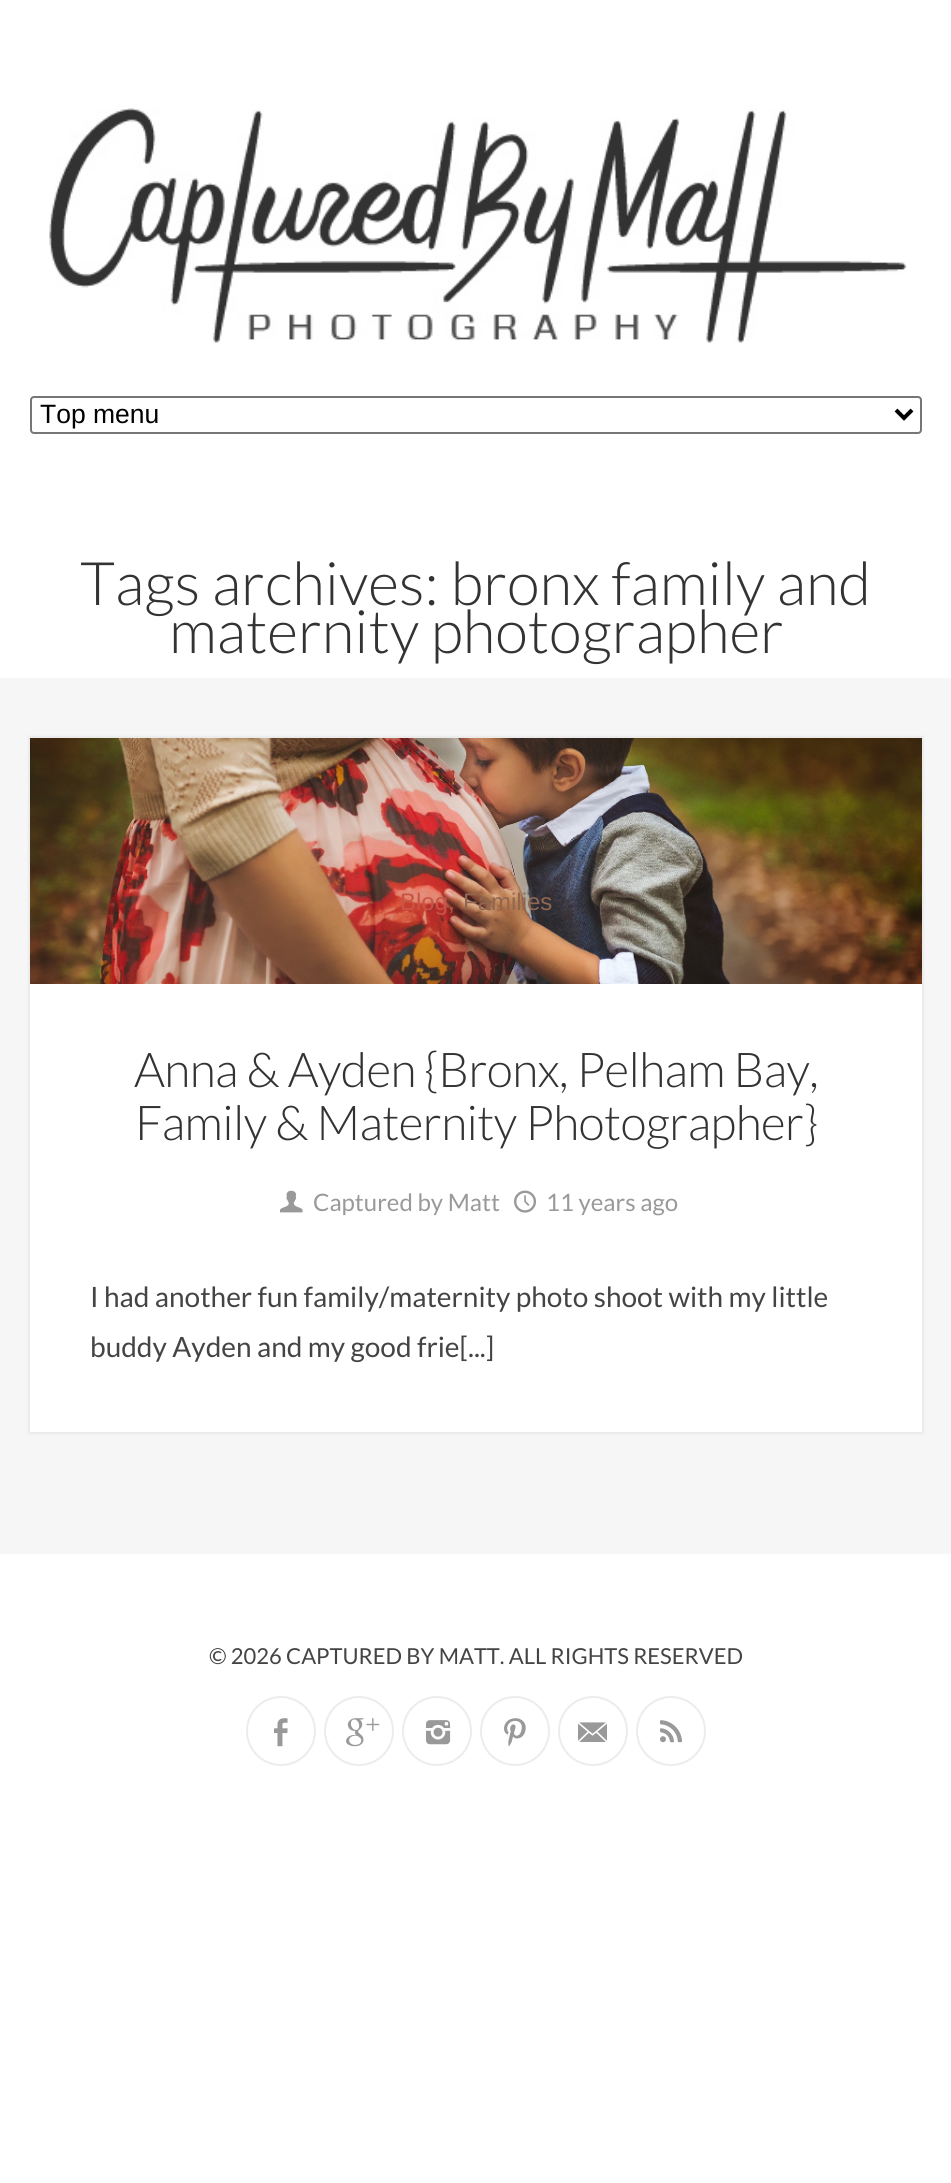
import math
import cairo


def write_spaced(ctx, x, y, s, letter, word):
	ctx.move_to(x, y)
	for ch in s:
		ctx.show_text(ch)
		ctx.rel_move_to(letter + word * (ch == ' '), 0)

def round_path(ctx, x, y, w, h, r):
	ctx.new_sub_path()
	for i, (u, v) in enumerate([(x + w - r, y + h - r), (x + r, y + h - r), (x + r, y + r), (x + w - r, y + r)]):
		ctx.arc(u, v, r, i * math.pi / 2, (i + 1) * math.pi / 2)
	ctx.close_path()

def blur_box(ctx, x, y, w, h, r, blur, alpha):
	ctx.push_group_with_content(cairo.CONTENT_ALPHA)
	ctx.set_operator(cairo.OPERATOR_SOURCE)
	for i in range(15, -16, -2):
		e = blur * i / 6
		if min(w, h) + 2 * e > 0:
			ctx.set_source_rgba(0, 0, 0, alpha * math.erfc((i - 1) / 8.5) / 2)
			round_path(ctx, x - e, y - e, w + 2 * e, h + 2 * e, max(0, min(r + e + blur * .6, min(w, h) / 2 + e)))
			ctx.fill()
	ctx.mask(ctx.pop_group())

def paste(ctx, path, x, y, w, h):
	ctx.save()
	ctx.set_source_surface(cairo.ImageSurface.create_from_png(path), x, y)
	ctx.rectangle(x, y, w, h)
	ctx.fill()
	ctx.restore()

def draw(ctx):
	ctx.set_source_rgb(1, 1, 1)
	ctx.paint()
	paste(ctx, 'media/1.png', 49, 108, 858, 235)
	round_path(ctx, 31, 397, 890, 36, 3)
	ctx.set_source_rgb(0.463, 0.463, 0.463)
	ctx.stroke()
	ctx.new_path()
	ctx.move_to(896, 410)
	ctx.line_to(904, 418)
	ctx.line_to(912, 410)
	ctx.set_source_rgb(0, 0, 0)
	ctx.set_line_width(4)
	ctx.stroke()
	ctx.select_font_face('Liberation Sans')
	ctx.set_font_size(26.5)
	ctx.move_to(40, 423)
	ctx.show_text('Top menu')
	ctx.select_font_face('Lato Light')
	ctx.set_font_size(60)
	ctx.set_source_rgb(0.2, 0.2, 0.2)
	ctx.move_to(80, 605)
	ctx.show_text('Tags archives: bronx family and')
	ctx.move_to(169, 653)
	ctx.show_text('maternity photographer')
	ctx.set_source_rgb(0.961, 0.961, 0.961)
	ctx.rectangle(0, 678, 951, 876)
	ctx.fill()
	ctx.set_source_rgb(0, 0, 0)
	blur_box(ctx, 28, 736, 896, 698, 0, 1, 0.05)
	ctx.set_source_rgb(1, 1, 1)
	ctx.rectangle(30, 984, 892, 448)
	ctx.fill()
	paste(ctx, 'media/2.png', 30, 738, 892, 246)
	ctx.select_font_face('Liberation Sans')
	ctx.set_font_size(24)
	ctx.set_source_rgb(0.78, 0.333, 0.278)
	ctx.move_to(400, 910)
	ctx.show_text('Blog,')
	ctx.set_source_rgb(0.557, 0.404, 0.318)
	ctx.move_to(463, 910)
	ctx.show_text('Families')
	ctx.select_font_face('Lato Light')
	ctx.set_font_size(48)
	ctx.set_source_rgb(0.2, 0.2, 0.2)
	write_spaced(ctx, 134, 1087, 'Anna & Ayden {Bronx, Pelham Bay,', -0.6, 0)
	write_spaced(ctx, 135, 1140, 'Family & Maternity Photographer}', -0.6, 0)
	paste(ctx, 'media/3.png', 280, 1190, 23, 23)
	ctx.select_font_face('Lato')
	ctx.set_font_size(24)
	ctx.set_source_rgb(0.6, 0.6, 0.6)
	ctx.move_to(313, 1211)
	ctx.show_text('Captured by Matt')
	paste(ctx, 'media/4.png', 514, 1190, 23, 23)
	ctx.move_to(546, 1211)
	ctx.show_text('11 years ago')
	ctx.set_font_size(28)
	ctx.set_source_rgb(0.267, 0.267, 0.267)
	ctx.move_to(90, 1307)
	ctx.show_text('I had another fun family/maternity photo shoot with my little')
	ctx.move_to(90, 1357)
	ctx.show_text('buddy Ayden and my good frie[...]')
	ctx.set_font_size(22)
	ctx.move_to(209, 1664)
	ctx.show_text('© 2026 CAPTURED BY MATT. ALL RIGHTS RESERVED')
	ctx.new_path()
	ctx.arc(281, 1731, 34, 0, 2 * math.pi)
	ctx.set_source_rgb(0.922, 0.922, 0.922)
	ctx.set_line_width(2)
	ctx.stroke()
	paste(ctx, 'media/5.png', 274, 1718, 14, 29)
	ctx.arc(359, 1731, 34, 0, 2 * math.pi)
	ctx.stroke()
	paste(ctx, 'media/6.png', 346, 1718, 34, 29)
	ctx.arc(437, 1731, 34, 0, 2 * math.pi)
	ctx.stroke()
	paste(ctx, 'media/7.png', 426, 1720, 25, 25)
	ctx.arc(515, 1731, 34, 0, 2 * math.pi)
	ctx.stroke()
	paste(ctx, 'media/8.png', 504, 1718, 22, 29)
	ctx.arc(593, 1731, 34, 0, 2 * math.pi)
	ctx.stroke()
	paste(ctx, 'media/9.png', 578, 1722, 29, 20)
	ctx.arc(671, 1731, 34, 0, 2 * math.pi)
	ctx.stroke()
	paste(ctx, 'media/10.png', 660, 1720, 22, 23)


surface = cairo.ImageSurface(cairo.FORMAT_RGB24, 951, 2183)
ctx = cairo.Context(surface)
options = cairo.FontOptions()
options.set_hint_metrics(cairo.HINT_METRICS_OFF)
options.set_hint_style(cairo.HINT_STYLE_NONE)
ctx.set_font_options(options)
ctx.set_miter_limit(4)
draw(ctx)
surface.write_to_png('image.png')
